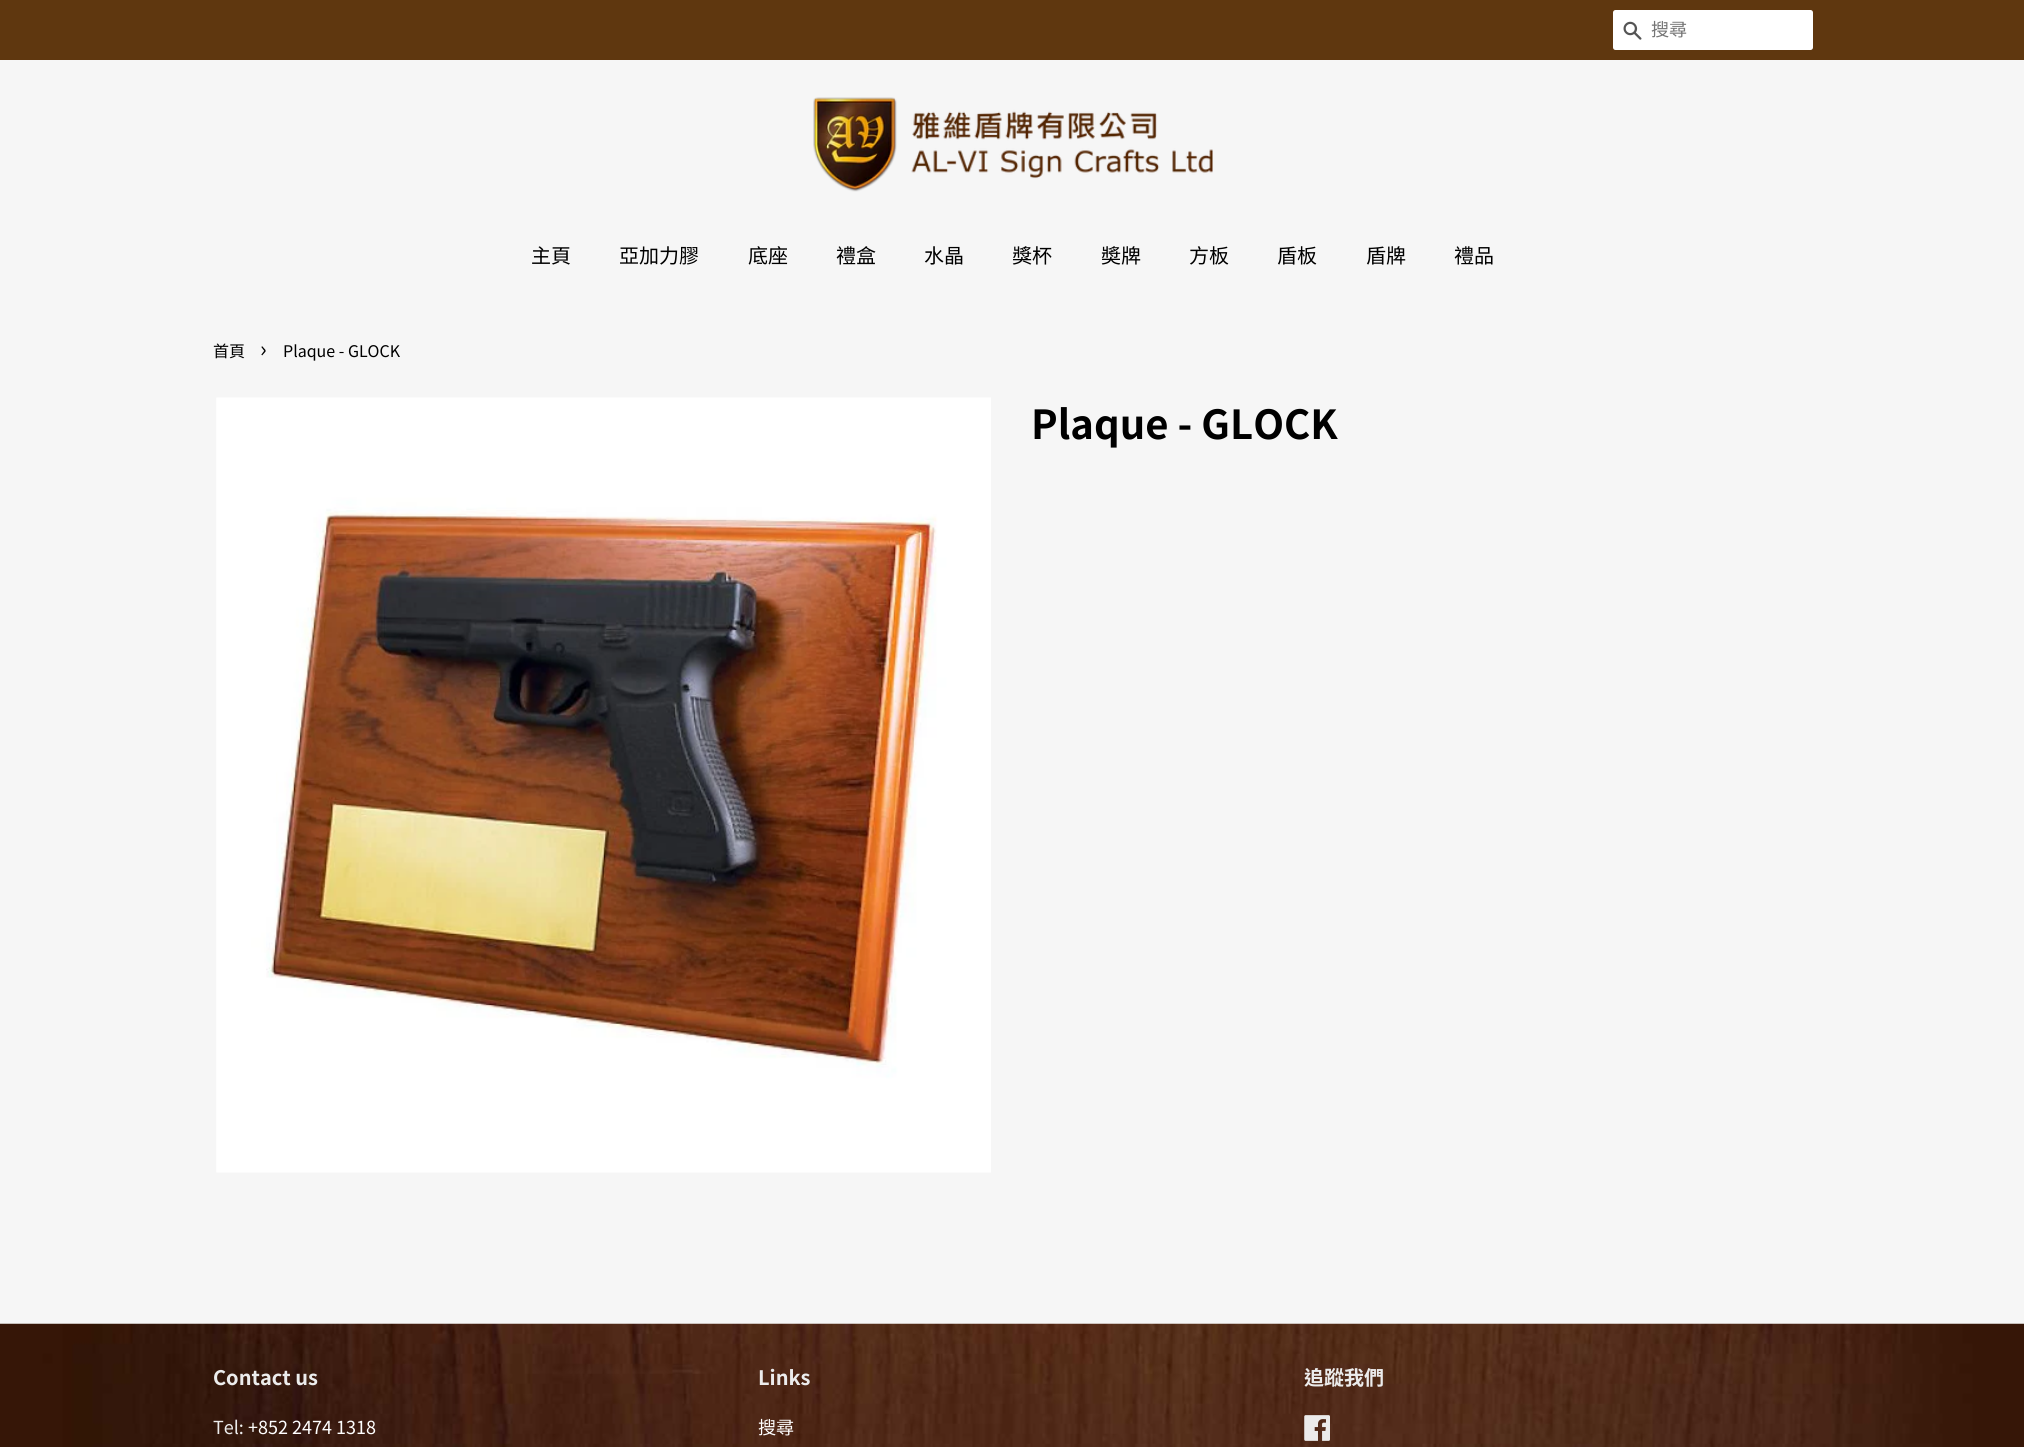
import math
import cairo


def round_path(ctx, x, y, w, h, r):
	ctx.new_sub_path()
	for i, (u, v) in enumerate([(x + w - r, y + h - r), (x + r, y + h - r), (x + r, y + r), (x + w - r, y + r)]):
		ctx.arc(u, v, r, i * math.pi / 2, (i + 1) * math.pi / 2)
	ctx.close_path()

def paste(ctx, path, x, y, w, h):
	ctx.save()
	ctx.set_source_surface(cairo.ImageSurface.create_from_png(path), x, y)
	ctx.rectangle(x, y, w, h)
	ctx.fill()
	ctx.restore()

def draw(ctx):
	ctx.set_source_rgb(0.961, 0.961, 0.961)
	ctx.paint()
	ctx.set_source_rgb(0.373, 0.216, 0.059)
	ctx.rectangle(0, 0, 2024, 60)
	ctx.fill()
	ctx.set_source_rgb(1, 1, 1)
	round_path(ctx, 1613, 10, 200, 40, 2.5)
	ctx.fill()
	paste(ctx, 'media/1.png', 1623, 21, 19, 19)
	ctx.select_font_face('Noto Sans HK')
	ctx.set_font_size(18)
	ctx.set_source_rgb(0.459, 0.459, 0.459)
	ctx.move_to(1651, 36)
	ctx.show_text('搜尋')
	paste(ctx, 'media/2.png', 813, 97, 400, 95)
	ctx.set_font_size(20)
	ctx.set_source_rgb(0, 0, 0)
	for x, y, s in [
		(531, 263, '主頁'),
		(619, 263, '亞加力膠'),
		(748, 263, '底座'),
		(836, 263, '禮盒'),
		(924, 263, '水晶'),
		(1012, 263, '獎杯'),
		(1101, 263, '奬牌'),
		(1189, 263, '方板'),
		(1277, 263, '盾板'),
		(1366, 263, '盾牌'),
		(1454, 263, '禮品'),
	]:
		ctx.move_to(x, y)
		ctx.show_text(s)
	ctx.set_font_size(16)
	ctx.move_to(213, 357)
	ctx.show_text('首頁')
	ctx.set_font_size(22)
	ctx.move_to(260, 357)
	ctx.show_text('›')
	ctx.set_font_size(16)
	ctx.move_to(283, 357)
	ctx.show_text('Plaque - GLOCK')
	paste(ctx, 'media/3.png', 216, 397, 775, 776)
	ctx.select_font_face('Noto Sans HK', cairo.FONT_SLANT_NORMAL, cairo.FONT_WEIGHT_BOLD)
	ctx.set_font_size(40)
	ctx.move_to(1031, 439)
	ctx.show_text('Plaque - GLOCK')
	paste(ctx, 'media/4.png', 0, 1323, 2024, 124)
	ctx.set_font_size(20)
	ctx.set_source_rgb(0.922, 0.922, 0.922)
	ctx.move_to(213, 1385)
	ctx.show_text('Contact us')
	ctx.select_font_face('Noto Sans HK')
	ctx.set_font_size(18)
	ctx.move_to(213, 1434)
	ctx.show_text('Tel:')
	ctx.set_source_rgb(1, 1, 1)
	ctx.move_to(248, 1434)
	ctx.show_text('+852 2474 1318')
	ctx.select_font_face('Noto Sans HK', cairo.FONT_SLANT_NORMAL, cairo.FONT_WEIGHT_BOLD)
	ctx.set_font_size(20)
	ctx.set_source_rgb(0.922, 0.922, 0.922)
	ctx.move_to(758, 1385)
	ctx.show_text('Links')
	ctx.select_font_face('Noto Sans HK')
	ctx.set_font_size(18)
	ctx.set_source_rgb(1, 1, 1)
	ctx.move_to(758, 1434)
	ctx.show_text('搜尋')
	ctx.select_font_face('Noto Sans HK', cairo.FONT_SLANT_NORMAL, cairo.FONT_WEIGHT_BOLD)
	ctx.set_font_size(20)
	ctx.set_source_rgb(0.922, 0.922, 0.922)
	ctx.move_to(1304, 1385)
	ctx.show_text('追蹤我們')
	paste(ctx, 'media/5.png', 1304, 1415, 26, 26)


surface = cairo.ImageSurface(cairo.FORMAT_RGB24, 2024, 1447)
ctx = cairo.Context(surface)
options = cairo.FontOptions()
options.set_hint_metrics(cairo.HINT_METRICS_OFF)
options.set_hint_style(cairo.HINT_STYLE_NONE)
ctx.set_font_options(options)
ctx.set_miter_limit(4)
draw(ctx)
surface.write_to_png('image.png')
